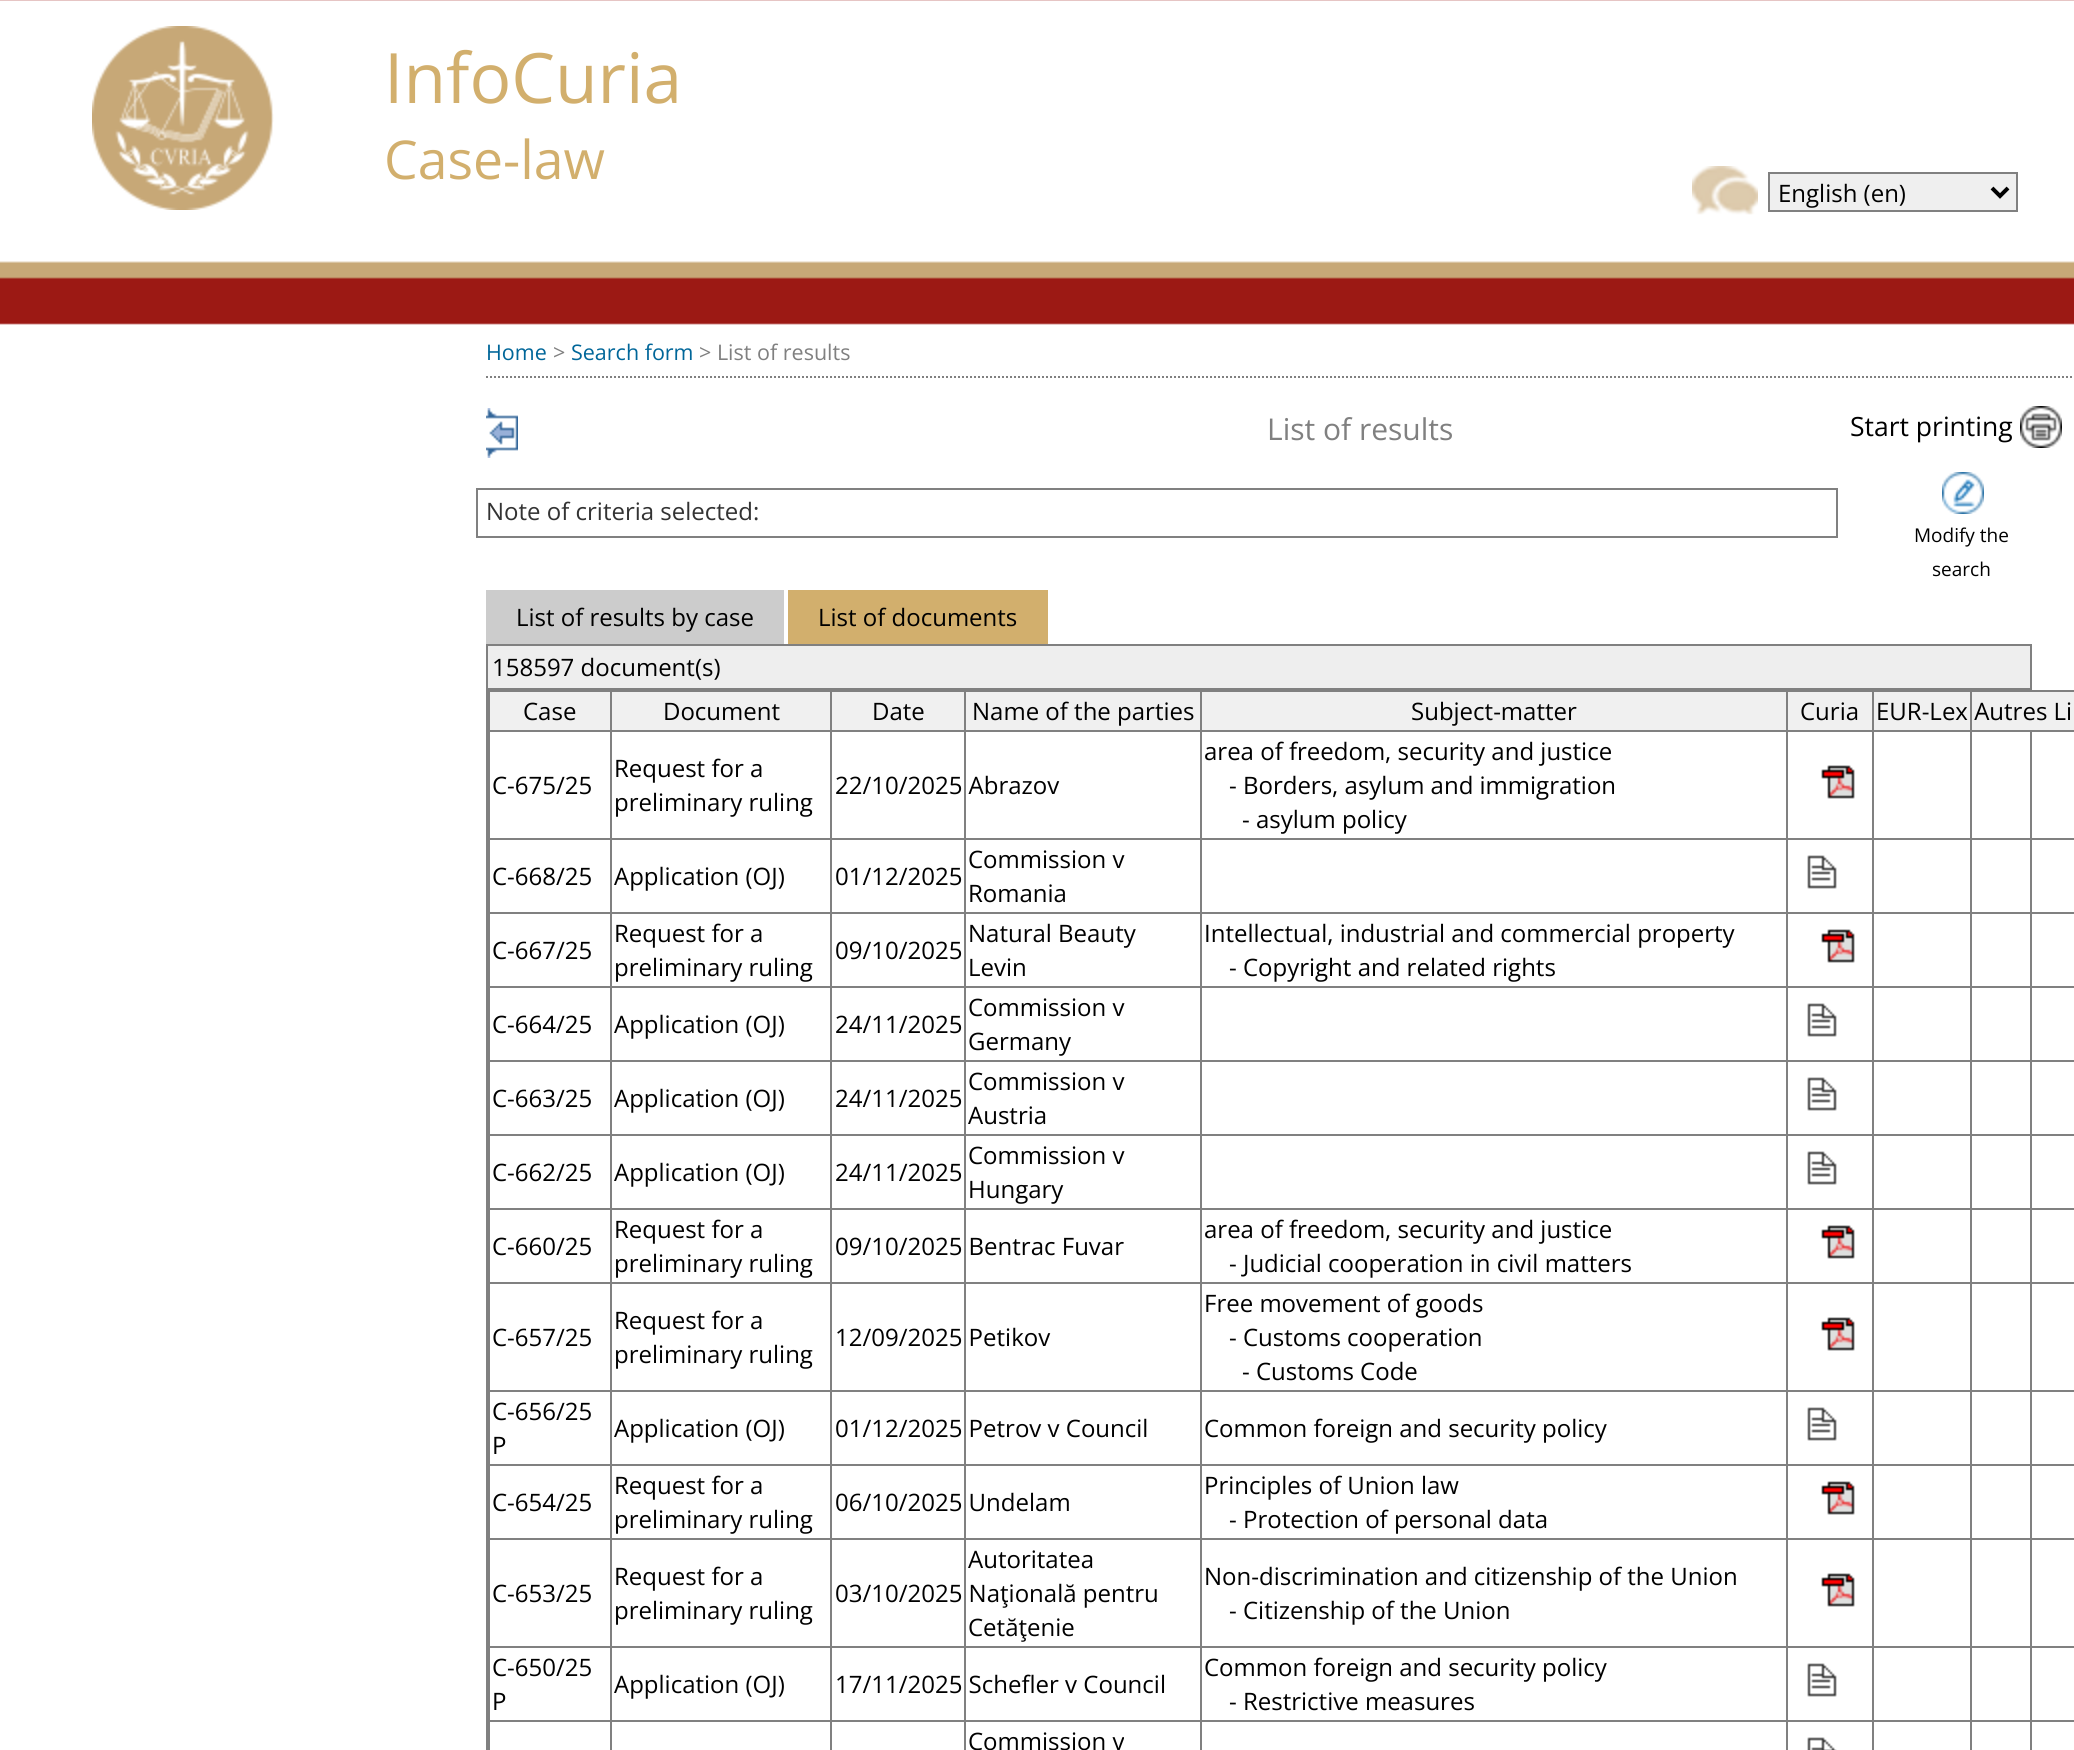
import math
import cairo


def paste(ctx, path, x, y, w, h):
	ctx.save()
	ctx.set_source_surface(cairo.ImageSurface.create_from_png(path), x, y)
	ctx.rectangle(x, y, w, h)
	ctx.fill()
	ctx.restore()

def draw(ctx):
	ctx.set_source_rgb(1, 1, 1)
	ctx.paint()
	paste(ctx, 'media/1.png', 0, 0, 2074, 325)
	paste(ctx, 'media/2.png', 92, 26, 182, 184)
	ctx.select_font_face('Open Sans')
	ctx.set_font_size(69.5)
	ctx.set_source_rgb(0.824, 0.686, 0.427)
	ctx.move_to(384, 103)
	ctx.show_text('InfoCuria')
	ctx.set_font_size(53.5)
	ctx.move_to(384, 179)
	ctx.show_text('Case-law')
	paste(ctx, 'media/3.png', 1692, 166, 66, 49)
	ctx.set_source_rgb(0.937, 0.937, 0.937)
	ctx.rectangle(1769, 173, 248, 38)
	ctx.fill_preserve()
	ctx.set_source_rgb(0.502, 0.502, 0.502)
	ctx.stroke()
	ctx.new_path()
	ctx.move_to(1992, 188)
	ctx.line_to(2000, 196)
	ctx.line_to(2008, 188)
	ctx.set_source_rgb(0, 0, 0)
	ctx.set_line_width(4)
	ctx.stroke()
	ctx.set_font_size(24)
	ctx.move_to(1778, 202)
	ctx.show_text('English (en)')
	ctx.new_path()
	ctx.move_to(486, 377)
	ctx.line_to(2074, 377)
	ctx.set_source_rgb(0.502, 0.502, 0.502)
	ctx.set_line_width(2)
	ctx.set_dash([2, 2])
	ctx.stroke()
	ctx.set_font_size(21.5)
	ctx.set_source_rgb(0, 0.4, 0.6)
	ctx.move_to(486, 360)
	ctx.show_text('Home')
	ctx.set_source_rgb(0.502, 0.502, 0.502)
	ctx.move_to(553, 360)
	ctx.show_text('>')
	ctx.set_source_rgb(0, 0.4, 0.6)
	ctx.move_to(571, 360)
	ctx.show_text('Search form')
	ctx.set_source_rgb(0.502, 0.502, 0.502)
	ctx.move_to(699, 360)
	ctx.show_text('> List of results')
	paste(ctx, 'media/4.png', 486, 408, 32, 50)
	ctx.set_font_size(26.5)
	ctx.set_source_rgb(0, 0, 0)
	ctx.move_to(1850, 436)
	ctx.show_text('Start printing')
	paste(ctx, 'media/5.png', 2020, 406, 42, 42)
	ctx.set_font_size(30)
	ctx.set_source_rgb(0.502, 0.502, 0.502)
	ctx.move_to(1267, 440)
	ctx.show_text('List of results')
	ctx.rectangle(477, 489, 1360, 48)
	ctx.set_dash([])
	ctx.stroke()
	ctx.set_font_size(24)
	ctx.set_source_rgb(0.2, 0.2, 0.2)
	ctx.move_to(486, 520)
	ctx.show_text('Note of criteria selected:')
	paste(ctx, 'media/6.png', 1942, 472, 42, 42)
	ctx.set_font_size(19)
	ctx.set_source_rgb(0, 0, 0)
	ctx.move_to(1914, 542)
	ctx.show_text('Modify the')
	ctx.move_to(1932, 576)
	ctx.show_text('search')
	ctx.set_source_rgb(0.8, 0.8, 0.8)
	ctx.rectangle(486, 590, 298, 54)
	ctx.fill()
	ctx.set_font_size(24)
	ctx.set_source_rgb(0, 0, 0)
	ctx.move_to(516, 626)
	ctx.show_text('List of results by case')
	ctx.set_source_rgb(0.824, 0.686, 0.427)
	ctx.rectangle(788, 590, 260, 54)
	ctx.fill()
	ctx.set_source_rgb(0, 0, 0)
	ctx.move_to(818, 626)
	ctx.show_text('List of documents')
	ctx.rectangle(487, 645, 1544, 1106)
	ctx.set_source_rgb(0.502, 0.502, 0.502)
	ctx.stroke()
	ctx.set_source_rgb(0.933, 0.933, 0.933)
	ctx.rectangle(488, 646, 1542, 42)
	ctx.fill()
	ctx.set_source_rgb(0.502, 0.502, 0.502)
	ctx.rectangle(488, 688, 1542, 2)
	ctx.fill()
	ctx.set_source_rgb(0, 0, 0)
	ctx.move_to(492, 676)
	ctx.show_text('158597 document(s)')
	ctx.set_source_rgb(0.941, 0.941, 0.941)
	ctx.rectangle(490, 692, 120, 38)
	ctx.fill()
	ctx.set_source_rgb(0.502, 0.502, 0.502)
	ctx.rectangle(1970, 690, 104, 2)
	ctx.rectangle(1970, 730, 104, 2)
	ctx.rectangle(1970, 838, 104, 2)
	ctx.rectangle(1970, 912, 104, 2)
	ctx.rectangle(1970, 986, 104, 2)
	ctx.rectangle(1970, 1060, 104, 2)
	ctx.rectangle(1970, 1134, 104, 2)
	ctx.rectangle(1970, 1208, 104, 2)
	ctx.rectangle(1970, 1282, 104, 2)
	ctx.rectangle(1970, 1390, 104, 2)
	ctx.rectangle(1970, 1464, 104, 2)
	ctx.rectangle(1970, 1538, 104, 2)
	ctx.rectangle(1970, 1646, 104, 2)
	ctx.rectangle(1970, 1720, 104, 2)
	ctx.rectangle(1970, 1720, 2, 30)
	ctx.rectangle(1872, 1720, 100, 2)
	ctx.rectangle(1970, 1646, 2, 76)
	ctx.rectangle(1872, 1646, 100, 2)
	ctx.rectangle(1970, 1538, 2, 110)
	ctx.rectangle(1872, 1538, 100, 2)
	ctx.rectangle(1970, 1464, 2, 76)
	ctx.rectangle(1872, 1464, 100, 2)
	ctx.rectangle(1970, 1390, 2, 76)
	ctx.rectangle(1872, 1390, 100, 2)
	ctx.rectangle(1970, 1282, 2, 110)
	ctx.rectangle(1872, 1282, 100, 2)
	ctx.rectangle(1970, 1208, 2, 76)
	ctx.rectangle(1872, 1208, 100, 2)
	ctx.rectangle(1970, 1134, 2, 76)
	ctx.rectangle(1872, 1134, 100, 2)
	ctx.rectangle(1970, 1060, 2, 76)
	ctx.rectangle(1872, 1060, 100, 2)
	ctx.rectangle(1970, 986, 2, 76)
	ctx.rectangle(1872, 986, 100, 2)
	ctx.rectangle(1970, 912, 2, 76)
	ctx.rectangle(1872, 912, 100, 2)
	ctx.rectangle(1970, 838, 2, 76)
	ctx.rectangle(1872, 838, 100, 2)
	ctx.rectangle(1970, 730, 2, 110)
	ctx.rectangle(1872, 730, 100, 2)
	ctx.rectangle(1970, 690, 2, 42)
	ctx.rectangle(1872, 690, 100, 2)
	ctx.rectangle(1872, 1720, 2, 30)
	ctx.rectangle(1786, 1720, 88, 2)
	ctx.rectangle(1872, 1646, 2, 76)
	ctx.rectangle(1786, 1646, 88, 2)
	ctx.rectangle(1872, 1538, 2, 110)
	ctx.rectangle(1786, 1538, 88, 2)
	ctx.rectangle(1872, 1464, 2, 76)
	ctx.rectangle(1786, 1464, 88, 2)
	ctx.rectangle(1872, 1390, 2, 76)
	ctx.rectangle(1786, 1390, 88, 2)
	ctx.rectangle(1872, 1282, 2, 110)
	ctx.rectangle(1786, 1282, 88, 2)
	ctx.rectangle(1872, 1208, 2, 76)
	ctx.rectangle(1786, 1208, 88, 2)
	ctx.rectangle(1872, 1134, 2, 76)
	ctx.rectangle(1786, 1134, 88, 2)
	ctx.rectangle(1872, 1060, 2, 76)
	ctx.rectangle(1786, 1060, 88, 2)
	ctx.rectangle(1872, 986, 2, 76)
	ctx.rectangle(1786, 986, 88, 2)
	ctx.rectangle(1872, 912, 2, 76)
	ctx.rectangle(1786, 912, 88, 2)
	ctx.rectangle(1872, 838, 2, 76)
	ctx.rectangle(1786, 838, 88, 2)
	ctx.rectangle(1872, 730, 2, 110)
	ctx.rectangle(1786, 730, 88, 2)
	ctx.rectangle(1872, 690, 2, 42)
	ctx.rectangle(1786, 690, 88, 2)
	ctx.rectangle(1786, 1720, 2, 30)
	ctx.rectangle(1200, 1720, 588, 2)
	ctx.rectangle(1786, 1646, 2, 76)
	ctx.rectangle(1200, 1646, 588, 2)
	ctx.rectangle(1786, 1538, 2, 110)
	ctx.rectangle(1200, 1538, 588, 2)
	ctx.rectangle(1786, 1464, 2, 76)
	ctx.rectangle(1200, 1464, 588, 2)
	ctx.rectangle(1786, 1390, 2, 76)
	ctx.rectangle(1200, 1390, 588, 2)
	ctx.rectangle(1786, 1282, 2, 110)
	ctx.rectangle(1200, 1282, 588, 2)
	ctx.rectangle(1786, 1208, 2, 76)
	ctx.rectangle(1200, 1208, 588, 2)
	ctx.rectangle(1786, 1134, 2, 76)
	ctx.rectangle(1200, 1134, 588, 2)
	ctx.rectangle(1786, 1060, 2, 76)
	ctx.rectangle(1200, 1060, 588, 2)
	ctx.rectangle(1786, 986, 2, 76)
	ctx.rectangle(1200, 986, 588, 2)
	ctx.rectangle(1786, 912, 2, 76)
	ctx.rectangle(1200, 912, 588, 2)
	ctx.rectangle(1786, 838, 2, 76)
	ctx.rectangle(1200, 838, 588, 2)
	ctx.rectangle(1786, 730, 2, 110)
	ctx.rectangle(1200, 730, 588, 2)
	ctx.rectangle(1786, 690, 2, 42)
	ctx.rectangle(1200, 690, 588, 2)
	ctx.rectangle(1200, 1720, 2, 30)
	ctx.rectangle(964, 1720, 238, 2)
	ctx.rectangle(1200, 1646, 2, 76)
	ctx.rectangle(964, 1646, 238, 2)
	ctx.rectangle(1200, 1538, 2, 110)
	ctx.rectangle(964, 1538, 238, 2)
	ctx.rectangle(1200, 1464, 2, 76)
	ctx.rectangle(964, 1464, 238, 2)
	ctx.rectangle(1200, 1390, 2, 76)
	ctx.rectangle(964, 1390, 238, 2)
	ctx.rectangle(1200, 1282, 2, 110)
	ctx.rectangle(964, 1282, 238, 2)
	ctx.rectangle(1200, 1208, 2, 76)
	ctx.rectangle(964, 1208, 238, 2)
	ctx.rectangle(1200, 1134, 2, 76)
	ctx.rectangle(964, 1134, 238, 2)
	ctx.rectangle(1200, 1060, 2, 76)
	ctx.rectangle(964, 1060, 238, 2)
	ctx.rectangle(1200, 986, 2, 76)
	ctx.rectangle(964, 986, 238, 2)
	ctx.rectangle(1200, 912, 2, 76)
	ctx.rectangle(964, 912, 238, 2)
	ctx.rectangle(1200, 838, 2, 76)
	ctx.rectangle(964, 838, 238, 2)
	ctx.rectangle(1200, 730, 2, 110)
	ctx.rectangle(964, 730, 238, 2)
	ctx.rectangle(1200, 690, 2, 42)
	ctx.rectangle(964, 690, 238, 2)
	ctx.rectangle(964, 1720, 2, 30)
	ctx.rectangle(830, 1720, 136, 2)
	ctx.rectangle(964, 1646, 2, 76)
	ctx.rectangle(830, 1646, 136, 2)
	ctx.rectangle(964, 1538, 2, 110)
	ctx.rectangle(830, 1538, 136, 2)
	ctx.rectangle(964, 1464, 2, 76)
	ctx.rectangle(830, 1464, 136, 2)
	ctx.rectangle(964, 1390, 2, 76)
	ctx.rectangle(830, 1390, 136, 2)
	ctx.rectangle(964, 1282, 2, 110)
	ctx.rectangle(830, 1282, 136, 2)
	ctx.rectangle(964, 1208, 2, 76)
	ctx.rectangle(830, 1208, 136, 2)
	ctx.rectangle(964, 1134, 2, 76)
	ctx.rectangle(830, 1134, 136, 2)
	ctx.rectangle(964, 1060, 2, 76)
	ctx.rectangle(830, 1060, 136, 2)
	ctx.rectangle(964, 986, 2, 76)
	ctx.rectangle(830, 986, 136, 2)
	ctx.rectangle(964, 912, 2, 76)
	ctx.rectangle(830, 912, 136, 2)
	ctx.rectangle(964, 838, 2, 76)
	ctx.rectangle(830, 838, 136, 2)
	ctx.rectangle(964, 730, 2, 110)
	ctx.rectangle(830, 730, 136, 2)
	ctx.rectangle(964, 690, 2, 42)
	ctx.rectangle(830, 690, 136, 2)
	ctx.rectangle(830, 1720, 2, 30)
	ctx.rectangle(610, 1720, 222, 2)
	ctx.rectangle(830, 1646, 2, 76)
	ctx.rectangle(610, 1646, 222, 2)
	ctx.rectangle(830, 1538, 2, 110)
	ctx.rectangle(610, 1538, 222, 2)
	ctx.rectangle(830, 1464, 2, 76)
	ctx.rectangle(610, 1464, 222, 2)
	ctx.rectangle(830, 1390, 2, 76)
	ctx.rectangle(610, 1390, 222, 2)
	ctx.rectangle(830, 1282, 2, 110)
	ctx.rectangle(610, 1282, 222, 2)
	ctx.rectangle(830, 1208, 2, 76)
	ctx.rectangle(610, 1208, 222, 2)
	ctx.rectangle(830, 1134, 2, 76)
	ctx.rectangle(610, 1134, 222, 2)
	ctx.rectangle(830, 1060, 2, 76)
	ctx.rectangle(610, 1060, 222, 2)
	ctx.rectangle(830, 986, 2, 76)
	ctx.rectangle(610, 986, 222, 2)
	ctx.rectangle(830, 912, 2, 76)
	ctx.rectangle(610, 912, 222, 2)
	ctx.rectangle(830, 838, 2, 76)
	ctx.rectangle(610, 838, 222, 2)
	ctx.rectangle(830, 730, 2, 110)
	ctx.rectangle(610, 730, 222, 2)
	ctx.rectangle(830, 690, 2, 42)
	ctx.rectangle(610, 690, 222, 2)
	ctx.rectangle(610, 1720, 2, 30)
	ctx.rectangle(488, 1720, 124, 2)
	ctx.rectangle(610, 1646, 2, 76)
	ctx.rectangle(488, 1646, 124, 2)
	ctx.rectangle(610, 1538, 2, 110)
	ctx.rectangle(488, 1538, 124, 2)
	ctx.rectangle(610, 1464, 2, 76)
	ctx.rectangle(488, 1464, 124, 2)
	ctx.rectangle(610, 1390, 2, 76)
	ctx.rectangle(488, 1390, 124, 2)
	ctx.rectangle(610, 1282, 2, 110)
	ctx.rectangle(488, 1282, 124, 2)
	ctx.rectangle(610, 1208, 2, 76)
	ctx.rectangle(488, 1208, 124, 2)
	ctx.rectangle(610, 1134, 2, 76)
	ctx.rectangle(488, 1134, 124, 2)
	ctx.rectangle(610, 1060, 2, 76)
	ctx.rectangle(488, 1060, 124, 2)
	ctx.rectangle(610, 986, 2, 76)
	ctx.rectangle(488, 986, 124, 2)
	ctx.rectangle(610, 912, 2, 76)
	ctx.rectangle(488, 912, 124, 2)
	ctx.rectangle(610, 838, 2, 76)
	ctx.rectangle(488, 838, 124, 2)
	ctx.rectangle(610, 730, 2, 110)
	ctx.rectangle(488, 730, 124, 2)
	ctx.rectangle(610, 690, 2, 42)
	ctx.rectangle(488, 690, 124, 2)
	ctx.rectangle(488, 1720, 2, 30)
	ctx.rectangle(488, 1646, 2, 76)
	ctx.rectangle(488, 1538, 2, 110)
	ctx.rectangle(488, 1464, 2, 76)
	ctx.rectangle(488, 1390, 2, 76)
	ctx.rectangle(488, 1282, 2, 110)
	ctx.rectangle(488, 1208, 2, 76)
	ctx.rectangle(488, 1134, 2, 76)
	ctx.rectangle(488, 1060, 2, 76)
	ctx.rectangle(488, 986, 2, 76)
	ctx.rectangle(488, 912, 2, 76)
	ctx.rectangle(488, 838, 2, 76)
	ctx.rectangle(488, 730, 2, 110)
	ctx.rectangle(488, 690, 2, 42)
	ctx.fill()
	ctx.set_source_rgb(0, 0, 0)
	ctx.move_to(523, 720)
	ctx.show_text('Case')
	ctx.set_source_rgb(0.941, 0.941, 0.941)
	ctx.rectangle(612, 692, 218, 38)
	ctx.fill()
	ctx.set_source_rgb(0, 0, 0)
	ctx.move_to(663, 720)
	ctx.show_text('Document')
	ctx.set_source_rgb(0.941, 0.941, 0.941)
	ctx.rectangle(832, 692, 132, 38)
	ctx.fill()
	ctx.set_source_rgb(0, 0, 0)
	ctx.move_to(872, 720)
	ctx.show_text('Date')
	ctx.set_source_rgb(0.941, 0.941, 0.941)
	ctx.rectangle(966, 692, 234, 38)
	ctx.fill()
	ctx.set_source_rgb(0, 0, 0)
	ctx.move_to(972, 720)
	ctx.show_text('Name of the parties')
	ctx.set_source_rgb(0.941, 0.941, 0.941)
	ctx.rectangle(1202, 692, 584, 38)
	ctx.fill()
	ctx.set_source_rgb(0, 0, 0)
	ctx.move_to(1411, 720)
	ctx.show_text('Subject-matter')
	ctx.set_source_rgb(0.941, 0.941, 0.941)
	ctx.rectangle(1788, 692, 84, 38)
	ctx.fill()
	ctx.set_source_rgb(0, 0, 0)
	ctx.move_to(1800, 720)
	ctx.show_text('Curia')
	ctx.set_source_rgb(0.941, 0.941, 0.941)
	ctx.rectangle(1972, 692, 102, 38)
	ctx.fill()
	ctx.rectangle(1874, 692, 96, 38)
	ctx.fill()
	ctx.set_source_rgb(0, 0, 0)
	for x, y, s in [
		(1876, 720, 'EUR-Lex Autres Li'),
		(492, 794, 'C-675/25'),
		(614, 777, 'Request for a'),
		(614, 811, 'preliminary ruling'),
		(835, 794, '22/10/2025 Abrazov'),
		(1204, 760, 'area of freedom, security and justice'),
		(1229, 794, '- Borders, asylum and immigration'),
		(1242, 828, '- asylum policy'),
	]:
		ctx.move_to(x, y)
		ctx.show_text(s)
	paste(ctx, 'media/7.png', 1821, 765, 34, 34)
	for x, y, s in [
		(492, 885, 'C-668/25'),
		(614, 885, 'Application (OJ)'),
		(835, 885, '01/12/2025'),
		(968, 868, 'Commission v'),
		(968, 902, 'Romania'),
	]:
		ctx.move_to(x, y)
		ctx.show_text(s)
	paste(ctx, 'media/8.png', 1807, 855, 30, 34)
	for x, y, s in [
		(492, 959, 'C-667/25'),
		(614, 942, 'Request for a'),
		(614, 976, 'preliminary ruling'),
		(835, 959, '09/10/2025'),
		(968, 942, 'Natural Beauty'),
		(968, 976, 'Levin'),
		(1204, 942, 'Intellectual, industrial and commercial property'),
		(1229, 976, '- Copyright and related rights'),
	]:
		ctx.move_to(x, y)
		ctx.show_text(s)
	paste(ctx, 'media/7.png', 1821, 929, 34, 34)
	for x, y, s in [
		(492, 1033, 'C-664/25'),
		(614, 1033, 'Application (OJ)'),
		(835, 1033, '24/11/2025'),
		(968, 1016, 'Commission v'),
		(968, 1050, 'Germany'),
	]:
		ctx.move_to(x, y)
		ctx.show_text(s)
	paste(ctx, 'media/8.png', 1807, 1003, 30, 34)
	for x, y, s in [
		(492, 1107, 'C-663/25'),
		(614, 1107, 'Application (OJ)'),
		(835, 1107, '24/11/2025'),
		(968, 1090, 'Commission v'),
		(968, 1124, 'Austria'),
	]:
		ctx.move_to(x, y)
		ctx.show_text(s)
	paste(ctx, 'media/8.png', 1807, 1077, 30, 34)
	for x, y, s in [
		(492, 1181, 'C-662/25'),
		(614, 1181, 'Application (OJ)'),
		(835, 1181, '24/11/2025'),
		(968, 1164, 'Commission v'),
		(968, 1198, 'Hungary'),
	]:
		ctx.move_to(x, y)
		ctx.show_text(s)
	paste(ctx, 'media/8.png', 1807, 1151, 30, 34)
	for x, y, s in [
		(492, 1255, 'C-660/25'),
		(614, 1238, 'Request for a'),
		(614, 1272, 'preliminary ruling'),
		(1204, 1238, 'area of freedom, security and justice'),
		(1229, 1272, '- Judicial cooperation in civil matters'),
	]:
		ctx.move_to(x, y)
		ctx.show_text(s)
	paste(ctx, 'media/7.png', 1821, 1225, 34, 34)
	for x, y, s in [
		(835, 1255, '09/10/2025 Bentrac Fuvar'),
		(492, 1346, 'C-657/25'),
		(614, 1329, 'Request for a'),
		(614, 1363, 'preliminary ruling'),
		(835, 1346, '12/09/2025 Petikov'),
		(1204, 1312, 'Free movement of goods'),
		(1229, 1346, '- Customs cooperation'),
		(1242, 1380, '- Customs Code'),
	]:
		ctx.move_to(x, y)
		ctx.show_text(s)
	paste(ctx, 'media/7.png', 1821, 1317, 34, 34)
	for x, y, s in [
		(492, 1420, 'C-656/25'),
		(492, 1454, 'P'),
		(614, 1437, 'Application (OJ)'),
	]:
		ctx.move_to(x, y)
		ctx.show_text(s)
	paste(ctx, 'media/8.png', 1807, 1407, 30, 34)
	for x, y, s in [
		(835, 1437, '01/12/2025 Petrov v Council'),
		(1204, 1437, 'Common foreign and security policy'),
		(492, 1511, 'C-654/25'),
		(614, 1494, 'Request for a'),
		(614, 1528, 'preliminary ruling'),
		(835, 1511, '06/10/2025 Undelam'),
		(1204, 1494, 'Principles of Union law'),
		(1229, 1528, '- Protection of personal data'),
	]:
		ctx.move_to(x, y)
		ctx.show_text(s)
	paste(ctx, 'media/7.png', 1821, 1481, 34, 34)
	for x, y, s in [
		(614, 1585, 'Request for a'),
		(614, 1619, 'preliminary ruling'),
		(968, 1568, 'Autoritatea'),
		(968, 1636, 'Cetăţenie'),
		(1204, 1585, 'Non-discrimination and citizenship of the Union'),
		(1229, 1619, '- Citizenship of the Union'),
	]:
		ctx.move_to(x, y)
		ctx.show_text(s)
	paste(ctx, 'media/7.png', 1821, 1573, 34, 34)
	for x, y, s in [
		(492, 1602, 'C-653/25'),
		(835, 1602, '03/10/2025 Naţională pentru'),
		(492, 1676, 'C-650/25'),
		(492, 1710, 'P'),
		(614, 1693, 'Application (OJ)'),
		(1204, 1676, 'Common foreign and security policy'),
		(1229, 1710, '- Restrictive measures'),
	]:
		ctx.move_to(x, y)
		ctx.show_text(s)
	paste(ctx, 'media/8.png', 1807, 1663, 30, 34)
	ctx.move_to(835, 1693)
	ctx.show_text('17/11/2025 Schefler v Council')
	ctx.move_to(968, 1750)
	ctx.show_text('Commission v')
	paste(ctx, 'media/9.png', 1807, 1737, 30, 13)


surface = cairo.ImageSurface(cairo.FORMAT_RGB24, 2074, 1750)
ctx = cairo.Context(surface)
options = cairo.FontOptions()
options.set_hint_metrics(cairo.HINT_METRICS_OFF)
options.set_hint_style(cairo.HINT_STYLE_NONE)
ctx.set_font_options(options)
ctx.set_miter_limit(4)
draw(ctx)
surface.write_to_png('image.png')
